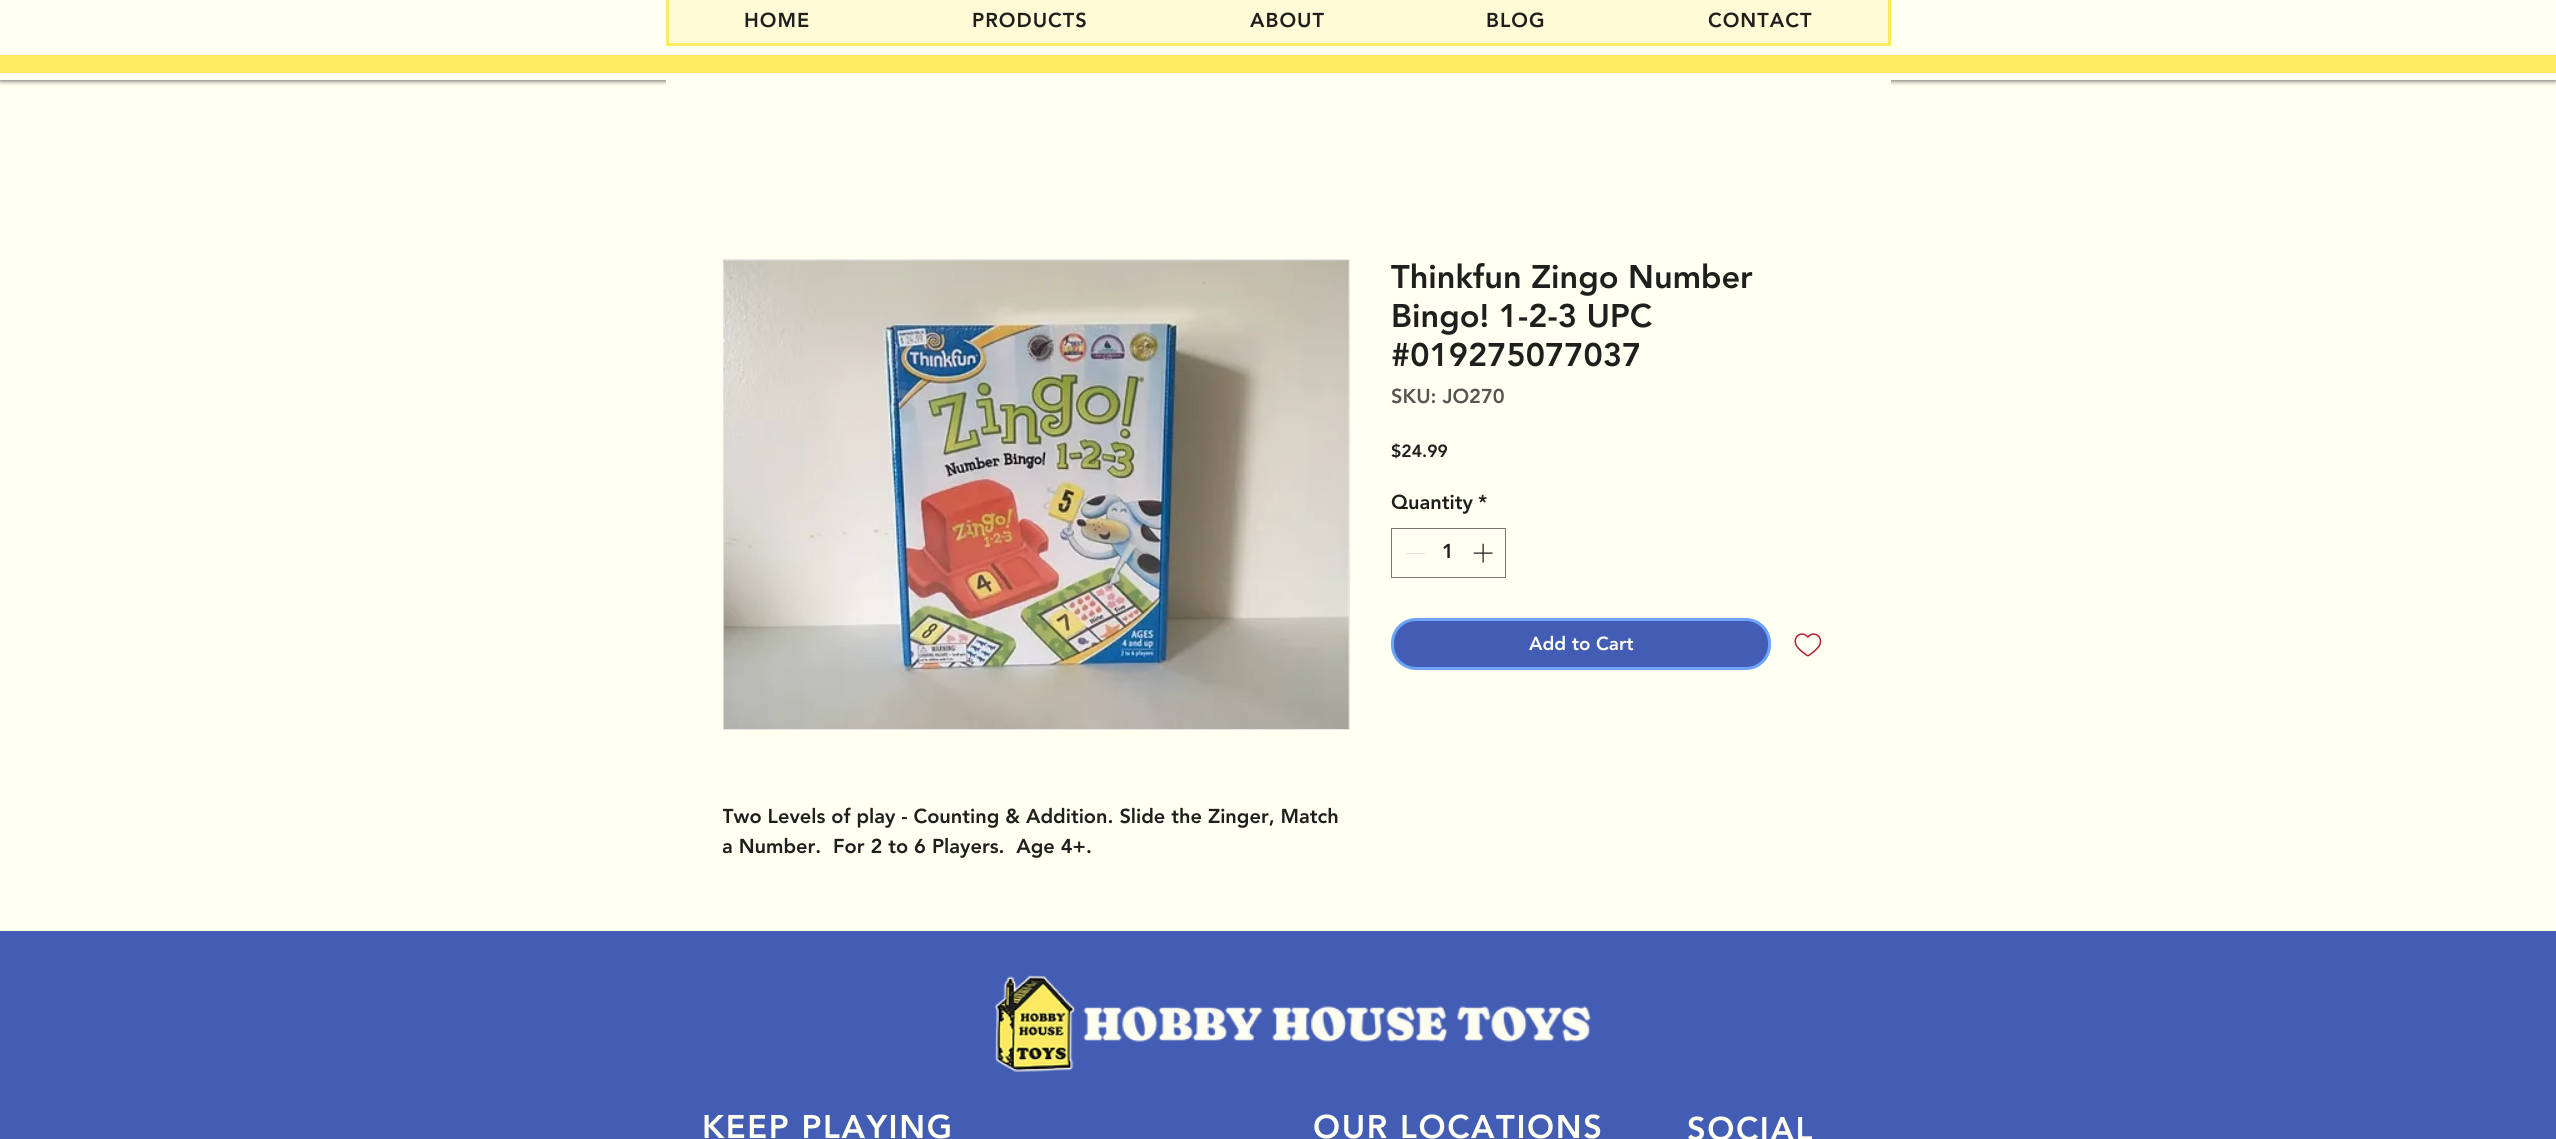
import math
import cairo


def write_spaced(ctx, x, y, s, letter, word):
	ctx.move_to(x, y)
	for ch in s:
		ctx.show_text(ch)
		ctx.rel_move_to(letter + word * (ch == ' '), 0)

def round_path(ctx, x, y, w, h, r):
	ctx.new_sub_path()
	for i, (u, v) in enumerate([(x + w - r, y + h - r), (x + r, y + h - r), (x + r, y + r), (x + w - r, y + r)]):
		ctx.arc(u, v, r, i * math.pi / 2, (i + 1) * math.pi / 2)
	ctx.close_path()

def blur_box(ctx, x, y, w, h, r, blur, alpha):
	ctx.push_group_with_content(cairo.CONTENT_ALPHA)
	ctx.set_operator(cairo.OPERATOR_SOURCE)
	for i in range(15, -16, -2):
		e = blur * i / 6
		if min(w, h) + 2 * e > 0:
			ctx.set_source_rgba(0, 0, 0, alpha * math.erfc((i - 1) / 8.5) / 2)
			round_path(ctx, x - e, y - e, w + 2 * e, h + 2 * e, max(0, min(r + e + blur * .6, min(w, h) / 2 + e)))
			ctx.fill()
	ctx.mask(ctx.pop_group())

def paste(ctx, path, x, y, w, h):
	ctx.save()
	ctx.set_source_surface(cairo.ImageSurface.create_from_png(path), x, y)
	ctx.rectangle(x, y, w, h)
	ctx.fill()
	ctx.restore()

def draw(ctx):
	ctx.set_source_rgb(1, 1, 0.949)
	ctx.paint()
	ctx.save()
	ctx.rectangle(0, 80, 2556, 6)
	ctx.clip()
	ctx.set_source_rgb(0, 0, 0)
	blur_box(ctx, 0, -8, 2556, 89, 0, 2.5, 0.6)
	ctx.restore()
	ctx.set_source_rgb(1, 0.984, 0.843)
	ctx.rectangle(667.5, -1.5, 1222, 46)
	ctx.fill_preserve()
	ctx.set_source_rgb(1, 0.918, 0.388)
	ctx.set_line_width(3)
	ctx.stroke()
	ctx.select_font_face('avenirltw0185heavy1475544 Black')
	ctx.set_font_size(20)
	ctx.set_source_rgb(0.122, 0.122, 0.114)
	for x, y, s in [
		(744, 27, 'HOME'),
		(972, 27, 'PRODUCTS'),
		(1250, 27, 'ABOUT'),
		(1486, 27, 'BLOG'),
		(1708, 27, 'CONTACT'),
	]:
		write_spaced(ctx, x, y, s, 1, 0)
	ctx.set_source_rgb(1, 0.918, 0.388)
	ctx.rectangle(0, 55, 2556, 18)
	ctx.fill()
	ctx.set_source_rgb(1, 1, 0.949)
	ctx.rectangle(666, 80, 1225, 6)
	ctx.fill()
	ctx.set_font_size(32.5)
	ctx.set_source_rgb(0.122, 0.122, 0.114)
	for x, y, s in [
		(1391, 288, 'Thinkfun Zingo Number'),
		(1391, 327, 'Bingo! 1-2-3 UPC'),
		(1391, 366, '#019275077037'),
	]:
		ctx.move_to(x, y)
		ctx.show_text(s)
	ctx.set_font_size(20)
	ctx.set_source_rgb(0.341, 0.341, 0.322)
	ctx.move_to(1391, 403)
	ctx.show_text('SKU: JO270')
	ctx.set_font_size(17.5)
	ctx.set_source_rgb(0.122, 0.122, 0.114)
	ctx.move_to(1391, 457)
	ctx.show_text('$24.99')
	ctx.set_font_size(20)
	ctx.move_to(1391, 509)
	ctx.show_text('Quantity')
	ctx.move_to(1478, 509)
	ctx.show_text('*')
	ctx.rectangle(1391.5, 528.5, 114, 49)
	ctx.set_source_rgb(0.475, 0.475, 0.447)
	ctx.set_line_width(1)
	ctx.stroke()
	ctx.set_source_rgb(0.89, 0.89, 0.867)
	ctx.rectangle(1406, 553, 19, 1)
	ctx.fill()
	ctx.set_source_rgb(0.122, 0.122, 0.114)
	ctx.move_to(1442, 558)
	ctx.show_text('1')
	paste(ctx, 'media/1.png', 1473, 543, 20, 20)
	ctx.set_source_rgb(0.263, 0.361, 0.706)
	round_path(ctx, 1392.5, 619.5, 377, 49, 23.5)
	ctx.fill_preserve()
	ctx.set_source_rgb(0.424, 0.647, 0.973)
	ctx.set_line_width(3)
	ctx.stroke()
	ctx.set_font_size(18.75)
	ctx.set_source_rgb(1, 1, 0.949)
	ctx.move_to(1529, 650)
	ctx.show_text('Add to Cart')
	paste(ctx, 'media/2.png', 1794, 633, 28, 24)
	ctx.rectangle(723.5, 259.5, 626, 470)
	ctx.set_source_rgb(0.91, 0.902, 0.902)
	ctx.set_line_width(1)
	ctx.stroke()
	paste(ctx, 'media/3.png', 723, 260, 626, 469)
	ctx.save()
	ctx.rectangle(723, 803, 625, 60)
	ctx.clip()
	ctx.set_font_size(20)
	ctx.set_source_rgb(0.122, 0.122, 0.114)
	ctx.move_to(722, 823)
	ctx.show_text('Two Levels of play - Counting & Addition. Slide the Zinger, Match')
	ctx.move_to(722, 853)
	ctx.show_text('a Number.  For 2 to 6 Players.  Age 4+.')
	ctx.restore()
	ctx.set_source_rgb(0.263, 0.361, 0.706)
	ctx.rectangle(0, 931, 2556, 208)
	ctx.fill()
	ctx.set_font_size(32.5)
	ctx.set_source_rgb(1, 1, 0.949)
	write_spaced(ctx, 702, 1138, 'KEEP PLAYING', 1.6, 0)
	paste(ctx, 'media/4.png', 994, 975, 598, 97)
	write_spaced(ctx, 1313, 1138, 'OUR LOCATIONS', 1.6, 0)
	write_spaced(ctx, 1687, 1140, 'SOCIAL', 1.6, 0)


surface = cairo.ImageSurface(cairo.FORMAT_RGB24, 2556, 1139)
ctx = cairo.Context(surface)
options = cairo.FontOptions()
options.set_hint_metrics(cairo.HINT_METRICS_OFF)
options.set_hint_style(cairo.HINT_STYLE_NONE)
ctx.set_font_options(options)
ctx.set_miter_limit(4)
draw(ctx)
surface.write_to_png('image.png')
